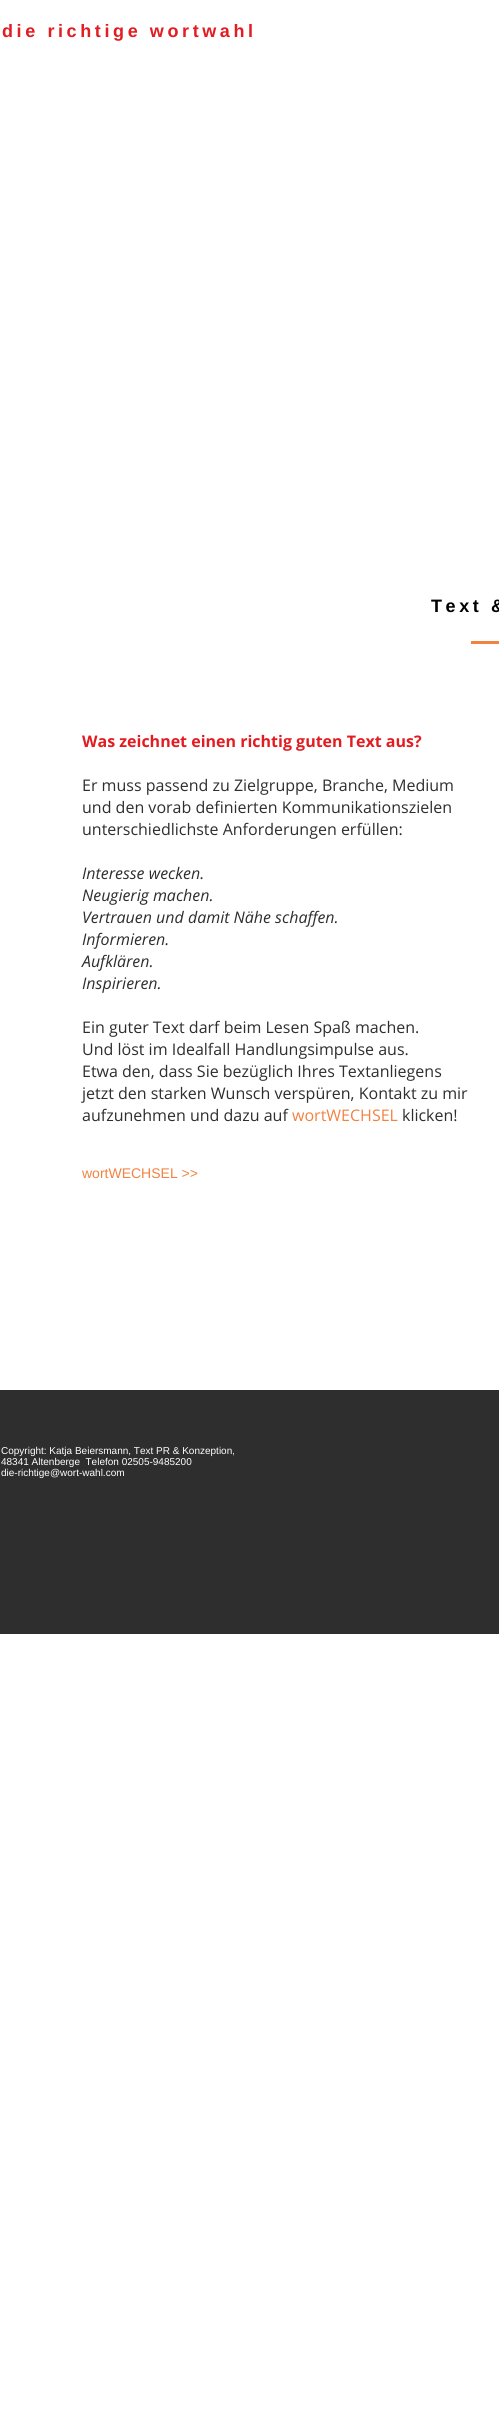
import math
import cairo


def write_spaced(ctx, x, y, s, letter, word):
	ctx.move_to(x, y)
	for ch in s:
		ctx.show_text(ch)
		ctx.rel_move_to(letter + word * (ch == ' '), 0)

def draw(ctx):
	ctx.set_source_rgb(1, 1, 1)
	ctx.paint()
	ctx.select_font_face('Liberation Sans', cairo.FONT_SLANT_NORMAL, cairo.FONT_WEIGHT_BOLD)
	ctx.set_font_size(18)
	ctx.set_source_rgb(0.886, 0.11, 0.129)
	write_spaced(ctx, 2, 37, 'die richtige wortwahl', 3.6, 0)
	ctx.set_source_rgb(0, 0, 0)
	write_spaced(ctx, 431, 612, 'Text &', 3.6, 0)
	ctx.set_source_rgb(0.949, 0.51, 0.255)
	ctx.rectangle(471, 641, 28, 3)
	ctx.fill()
	ctx.select_font_face('Open Sans', cairo.FONT_SLANT_NORMAL, cairo.FONT_WEIGHT_BOLD)
	ctx.set_font_size(16)
	ctx.set_source_rgb(0.886, 0.11, 0.129)
	ctx.move_to(82, 747)
	ctx.show_text('Was zeichnet einen richtig guten Text aus?')
	ctx.select_font_face('Open Sans')
	ctx.set_source_rgb(0.184, 0.18, 0.18)
	for x, y, s in [
		(82, 791, 'Er muss passend zu Zielgruppe, Branche, Medium'),
		(82, 813, 'und den vorab definierten Kommunikationszielen'),
		(82, 835, 'unterschiedlichste Anforderungen erfüllen:'),
	]:
		ctx.move_to(x, y)
		ctx.show_text(s)
	ctx.select_font_face('Open Sans', cairo.FONT_SLANT_ITALIC)
	for x, y, s in [
		(82, 879, 'Interesse wecken.'),
		(82, 901, 'Neugierig machen.'),
		(82, 923, 'Vertrauen und damit Nähe schaffen.'),
		(82, 945, 'Informieren.'),
		(82, 967, 'Aufklären.'),
		(82, 989, 'Inspirieren.'),
	]:
		ctx.move_to(x, y)
		ctx.show_text(s)
	ctx.select_font_face('Open Sans')
	for x, y, s in [
		(82, 1033, 'Ein guter Text darf beim Lesen Spaß machen.'),
		(82, 1055, 'Und löst im Idealfall Handlungsimpulse aus.'),
		(82, 1077, 'Etwa den, dass Sie bezüglich Ihres Textanliegens'),
		(82, 1099, 'jetzt den starken Wunsch verspüren, Kontakt zu mir'),
		(82, 1121, 'aufzunehmen und dazu auf'),
	]:
		ctx.move_to(x, y)
		ctx.show_text(s)
	ctx.set_source_rgb(0.949, 0.51, 0.255)
	ctx.move_to(292, 1121)
	ctx.show_text('wortWECHSEL')
	ctx.set_source_rgb(0.184, 0.18, 0.18)
	ctx.move_to(402, 1121)
	ctx.show_text('klicken!')
	ctx.select_font_face('Liberation Sans')
	ctx.set_font_size(14)
	ctx.set_source_rgb(0.949, 0.51, 0.255)
	ctx.move_to(82, 1178)
	ctx.show_text('wortWECHSEL >>')
	ctx.set_source_rgb(0.184, 0.18, 0.18)
	ctx.rectangle(0, 1390, 499, 244)
	ctx.fill()
	ctx.set_font_size(10)
	ctx.set_source_rgb(1, 1, 1)
	for x, y, s in [
		(1, 1454, 'Copyright: Katja Beiersmann, Text PR & Konzeption,'),
		(1, 1465, '48341 Altenberge  Telefon 02505-9485200'),
		(1, 1476, 'die-richtige@wort-wahl.com'),
	]:
		ctx.move_to(x, y)
		ctx.show_text(s)


surface = cairo.ImageSurface(cairo.FORMAT_RGB24, 499, 2425)
ctx = cairo.Context(surface)
options = cairo.FontOptions()
options.set_hint_metrics(cairo.HINT_METRICS_OFF)
options.set_hint_style(cairo.HINT_STYLE_NONE)
ctx.set_font_options(options)
ctx.set_miter_limit(4)
draw(ctx)
surface.write_to_png('image.png')
